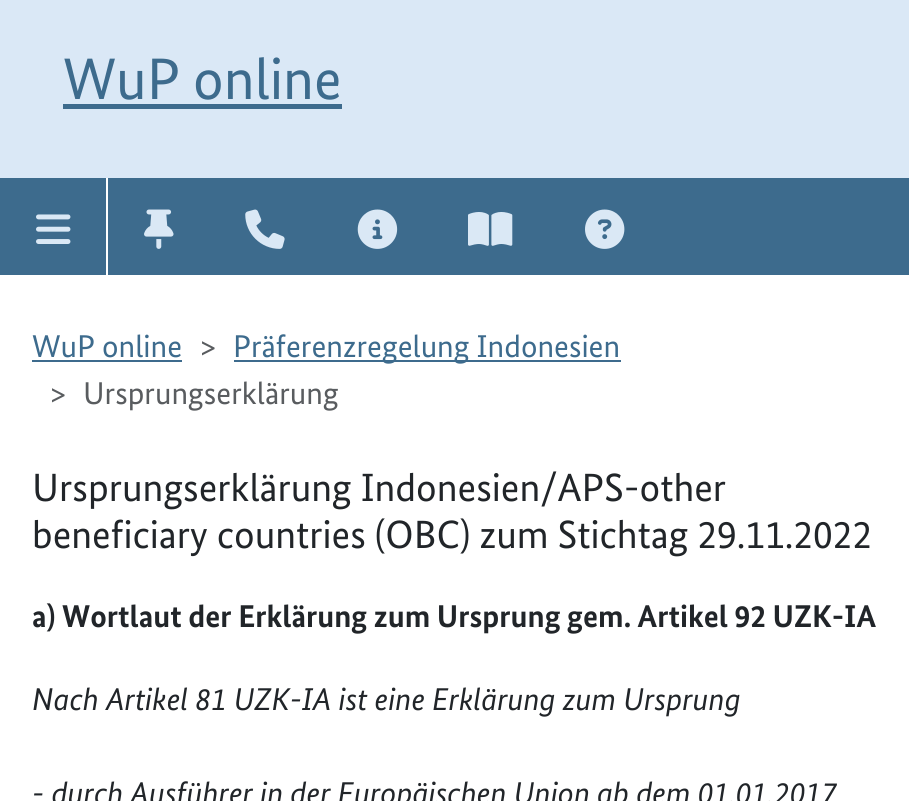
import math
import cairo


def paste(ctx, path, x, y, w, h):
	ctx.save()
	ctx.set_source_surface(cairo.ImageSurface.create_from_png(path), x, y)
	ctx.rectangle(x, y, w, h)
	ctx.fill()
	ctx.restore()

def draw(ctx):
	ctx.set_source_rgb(0.855, 0.91, 0.961)
	ctx.paint()
	ctx.select_font_face('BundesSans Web')
	ctx.set_font_size(58.5)
	ctx.set_source_rgb(0.239, 0.42, 0.553)
	ctx.move_to(63, 99)
	ctx.show_text('WuP online')
	ctx.rectangle(63, 104, 279, 5)
	ctx.rectangle(0, 178, 909, 97)
	ctx.fill()
	ctx.set_source_rgb(1, 1, 1)
	ctx.rectangle(106, 178, 2, 97)
	ctx.fill()
	paste(ctx, 'media/1.png', 36, 214, 35, 30)
	paste(ctx, 'media/2.png', 144, 209, 30, 40)
	paste(ctx, 'media/3.png', 245, 209, 40, 40)
	paste(ctx, 'media/4.png', 357, 209, 41, 40)
	paste(ctx, 'media/5.png', 468, 212, 45, 34)
	paste(ctx, 'media/6.png', 585, 209, 40, 40)
	ctx.rectangle(0, 275, 909, 526)
	ctx.fill()
	ctx.set_font_size(31.5)
	ctx.set_source_rgb(0.239, 0.42, 0.553)
	ctx.move_to(32, 357)
	ctx.show_text('WuP online')
	ctx.rectangle(32, 360, 150, 2)
	ctx.fill()
	ctx.set_source_rgb(0.349, 0.361, 0.373)
	ctx.move_to(200, 357)
	ctx.show_text('>')
	ctx.set_source_rgb(0.239, 0.42, 0.553)
	ctx.rectangle(234, 360, 387, 2)
	ctx.fill()
	ctx.move_to(233, 357)
	ctx.show_text('Präferenzregelung Indonesien')
	ctx.set_source_rgb(0.349, 0.361, 0.373)
	ctx.move_to(50, 404)
	ctx.show_text('>')
	ctx.move_to(83, 404)
	ctx.show_text('Ursprungserklärung')
	ctx.set_font_size(39.4)
	ctx.set_source_rgb(0.129, 0.145, 0.161)
	ctx.move_to(32, 501)
	ctx.show_text('Ursprungserklärung Indonesien/APS-other')
	ctx.move_to(32, 548)
	ctx.show_text('beneficiary countries (OBC) zum Stichtag 29.11.2022')
	ctx.select_font_face('BundesSans Web', cairo.FONT_SLANT_NORMAL, cairo.FONT_WEIGHT_BOLD)
	ctx.set_font_size(31.5)
	ctx.move_to(32, 627)
	ctx.show_text('a) Wortlaut der Erklärung zum Ursprung gem. Artikel 92 UZK-IA')
	ctx.select_font_face('BundesSans Web', cairo.FONT_SLANT_ITALIC)
	ctx.move_to(32, 710)
	ctx.show_text('Nach Artikel 81 UZK-IA ist eine Erklärung zum Ursprung')
	ctx.move_to(32, 804)
	ctx.show_text('- durch Ausführer in der Europäischen Union ab dem 01.01.2017')


surface = cairo.ImageSurface(cairo.FORMAT_RGB24, 909, 801)
ctx = cairo.Context(surface)
options = cairo.FontOptions()
options.set_hint_metrics(cairo.HINT_METRICS_OFF)
options.set_hint_style(cairo.HINT_STYLE_NONE)
ctx.set_font_options(options)
ctx.set_miter_limit(4)
draw(ctx)
surface.write_to_png('image.png')
